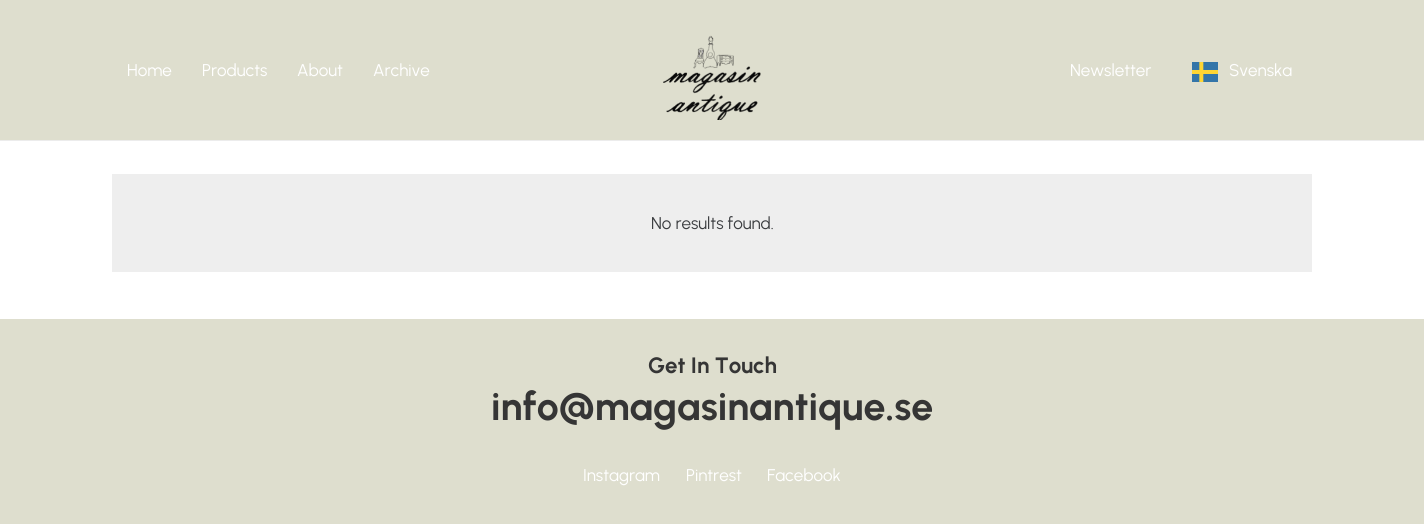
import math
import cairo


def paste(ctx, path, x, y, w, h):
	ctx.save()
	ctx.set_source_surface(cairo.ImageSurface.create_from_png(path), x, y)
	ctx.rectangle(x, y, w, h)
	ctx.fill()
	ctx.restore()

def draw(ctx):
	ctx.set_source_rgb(1, 1, 1)
	ctx.paint()
	ctx.set_source_rgb(0.922, 0.922, 0.922)
	ctx.rectangle(0, 140, 1424, 1)
	ctx.fill()
	ctx.set_source_rgb(0.871, 0.871, 0.808)
	ctx.rectangle(0, 0, 1424, 140)
	ctx.fill()
	ctx.select_font_face('Urbanist')
	ctx.set_font_size(17)
	ctx.set_source_rgb(1, 1, 1)
	for x, y, s in [
		(127, 76, 'Home'),
		(202, 76, 'Products'),
		(297, 76, 'About'),
		(373, 76, 'Archive'),
	]:
		ctx.move_to(x, y)
		ctx.show_text(s)
	paste(ctx, 'media/1.png', 663, 35, 98, 85)
	ctx.move_to(1070, 76)
	ctx.show_text('Newsletter')
	paste(ctx, 'media/2.png', 1192, 62, 26, 20)
	ctx.move_to(1229, 76)
	ctx.show_text('Svenska')
	ctx.set_source_rgb(0.933, 0.933, 0.933)
	ctx.rectangle(112, 174, 1200, 98)
	ctx.fill()
	ctx.set_source_rgb(0.231, 0.239, 0.251)
	ctx.move_to(651, 229)
	ctx.show_text('No results found.')
	ctx.set_source_rgb(0.871, 0.871, 0.808)
	ctx.rectangle(0, 319, 1424, 205)
	ctx.fill()
	ctx.select_font_face('Urbanist', cairo.FONT_SLANT_NORMAL, cairo.FONT_WEIGHT_BOLD)
	ctx.set_font_size(22.25)
	ctx.set_source_rgb(0.208, 0.208, 0.208)
	ctx.move_to(648, 373)
	ctx.show_text('Get In Touch')
	ctx.set_font_size(39.25)
	ctx.move_to(491, 420)
	ctx.show_text('info@magasinantique.se')
	ctx.select_font_face('Urbanist')
	ctx.set_font_size(17)
	ctx.set_source_rgb(1, 1, 1)
	for x, y, s in [
		(583, 481, 'Instagram'),
		(686, 481, 'Pintrest'),
		(767, 481, 'Facebook'),
	]:
		ctx.move_to(x, y)
		ctx.show_text(s)


surface = cairo.ImageSurface(cairo.FORMAT_RGB24, 1424, 524)
ctx = cairo.Context(surface)
options = cairo.FontOptions()
options.set_hint_metrics(cairo.HINT_METRICS_OFF)
options.set_hint_style(cairo.HINT_STYLE_NONE)
ctx.set_font_options(options)
ctx.set_miter_limit(4)
draw(ctx)
surface.write_to_png('image.png')
